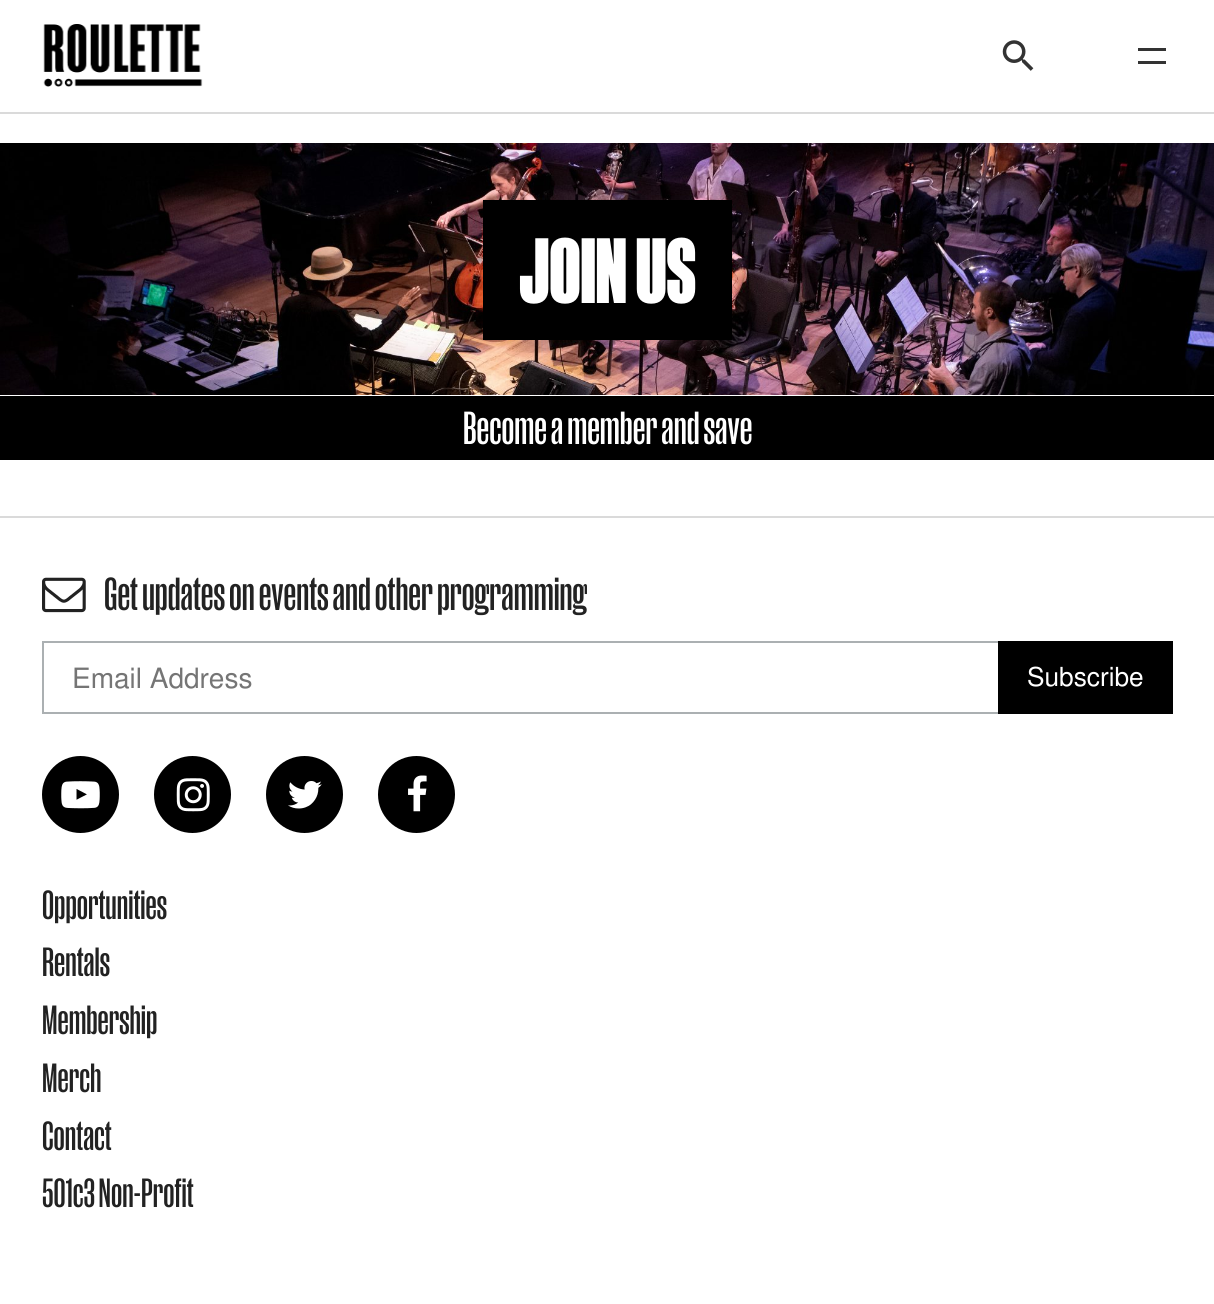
import math
import cairo


def paste(ctx, path, x, y, w, h):
	ctx.save()
	ctx.set_source_surface(cairo.ImageSurface.create_from_png(path), x, y)
	ctx.rectangle(x, y, w, h)
	ctx.fill()
	ctx.restore()

def draw(ctx):
	ctx.set_source_rgb(1, 1, 1)
	ctx.paint()
	ctx.set_source_rgb(0.855, 0.855, 0.855)
	ctx.rectangle(0, 112, 1214, 2)
	ctx.fill()
	paste(ctx, 'media/1.png', 43, 24, 160, 63)
	paste(ctx, 'media/2.png', 1002, 40, 32, 31)
	ctx.set_source_rgb(0.2, 0.2, 0.2)
	ctx.rectangle(1138, 48, 28, 3)
	ctx.fill()
	ctx.rectangle(1138, 61, 28, 3)
	ctx.fill()
	paste(ctx, 'media/3.png', 0, 143, 1214, 252)
	ctx.set_source_rgb(0, 0, 0)
	ctx.rectangle(483, 200, 249, 140)
	ctx.fill()
	ctx.select_font_face('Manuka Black')
	ctx.set_font_size(87.5)
	ctx.set_source_rgb(1, 1, 1)
	ctx.move_to(519, 303)
	ctx.show_text('JOIN US')
	ctx.set_source_rgb(0, 0, 0)
	ctx.rectangle(0, 396, 1214, 64)
	ctx.fill()
	ctx.select_font_face('Manuka Medium')
	ctx.set_font_size(43.75)
	ctx.set_source_rgb(1, 1, 1)
	ctx.move_to(463, 444)
	ctx.show_text('Become a member and save')
	ctx.set_source_rgb(0.855, 0.855, 0.855)
	ctx.rectangle(0, 516, 1214, 2)
	ctx.fill()
	paste(ctx, 'media/4.png', 42, 577, 44, 36)
	ctx.set_source_rgb(0.133, 0.133, 0.133)
	ctx.move_to(104, 610)
	ctx.show_text('Get updates on events and other programming')
	ctx.set_source_rgb(0.671, 0.69, 0.698)
	ctx.rectangle(42, 641, 956, 2)
	ctx.rectangle(42, 712, 956, 2)
	ctx.rectangle(42, 641, 2, 73)
	ctx.fill()
	ctx.select_font_face('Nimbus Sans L')
	ctx.set_font_size(28)
	ctx.set_source_rgb(0.459, 0.459, 0.459)
	ctx.move_to(72, 688)
	ctx.show_text('Email Address')
	ctx.set_source_rgb(0, 0, 0)
	ctx.rectangle(998, 641, 175, 73)
	ctx.fill()
	ctx.set_font_size(26.25)
	ctx.set_source_rgb(1, 1, 1)
	ctx.move_to(1027, 686)
	ctx.show_text('Subscribe')
	ctx.set_source_rgb(0, 0, 0)
	ctx.new_path()
	ctx.arc(80.5, 794.5, 38.5, 0, 2 * math.pi)
	ctx.fill()
	paste(ctx, 'media/5.png', 61, 781, 39, 28)
	ctx.arc(192.5, 794.5, 38.5, 0, 2 * math.pi)
	ctx.fill()
	paste(ctx, 'media/6.png', 176, 778, 34, 34)
	ctx.arc(304.5, 794.5, 38.5, 0, 2 * math.pi)
	ctx.fill()
	paste(ctx, 'media/7.png', 288, 781, 34, 28)
	ctx.arc(416.5, 794.5, 38.5, 0, 2 * math.pi)
	ctx.fill()
	paste(ctx, 'media/8.png', 408, 775, 19, 37)
	ctx.select_font_face('Manuka Medium')
	ctx.set_font_size(38.5)
	ctx.set_source_rgb(0.133, 0.133, 0.133)
	for x, y, s in [
		(42, 919, 'Opportunities'),
		(42, 976, 'Rentals'),
		(42, 1034, 'Membership'),
		(42, 1092, 'Merch'),
		(42, 1150, 'Contact'),
		(42, 1207, '501c3 Non-Profit'),
	]:
		ctx.move_to(x, y)
		ctx.show_text(s)


surface = cairo.ImageSurface(cairo.FORMAT_RGB24, 1214, 1304)
ctx = cairo.Context(surface)
options = cairo.FontOptions()
options.set_hint_metrics(cairo.HINT_METRICS_OFF)
options.set_hint_style(cairo.HINT_STYLE_NONE)
ctx.set_font_options(options)
ctx.set_miter_limit(4)
draw(ctx)
surface.write_to_png('image.png')
